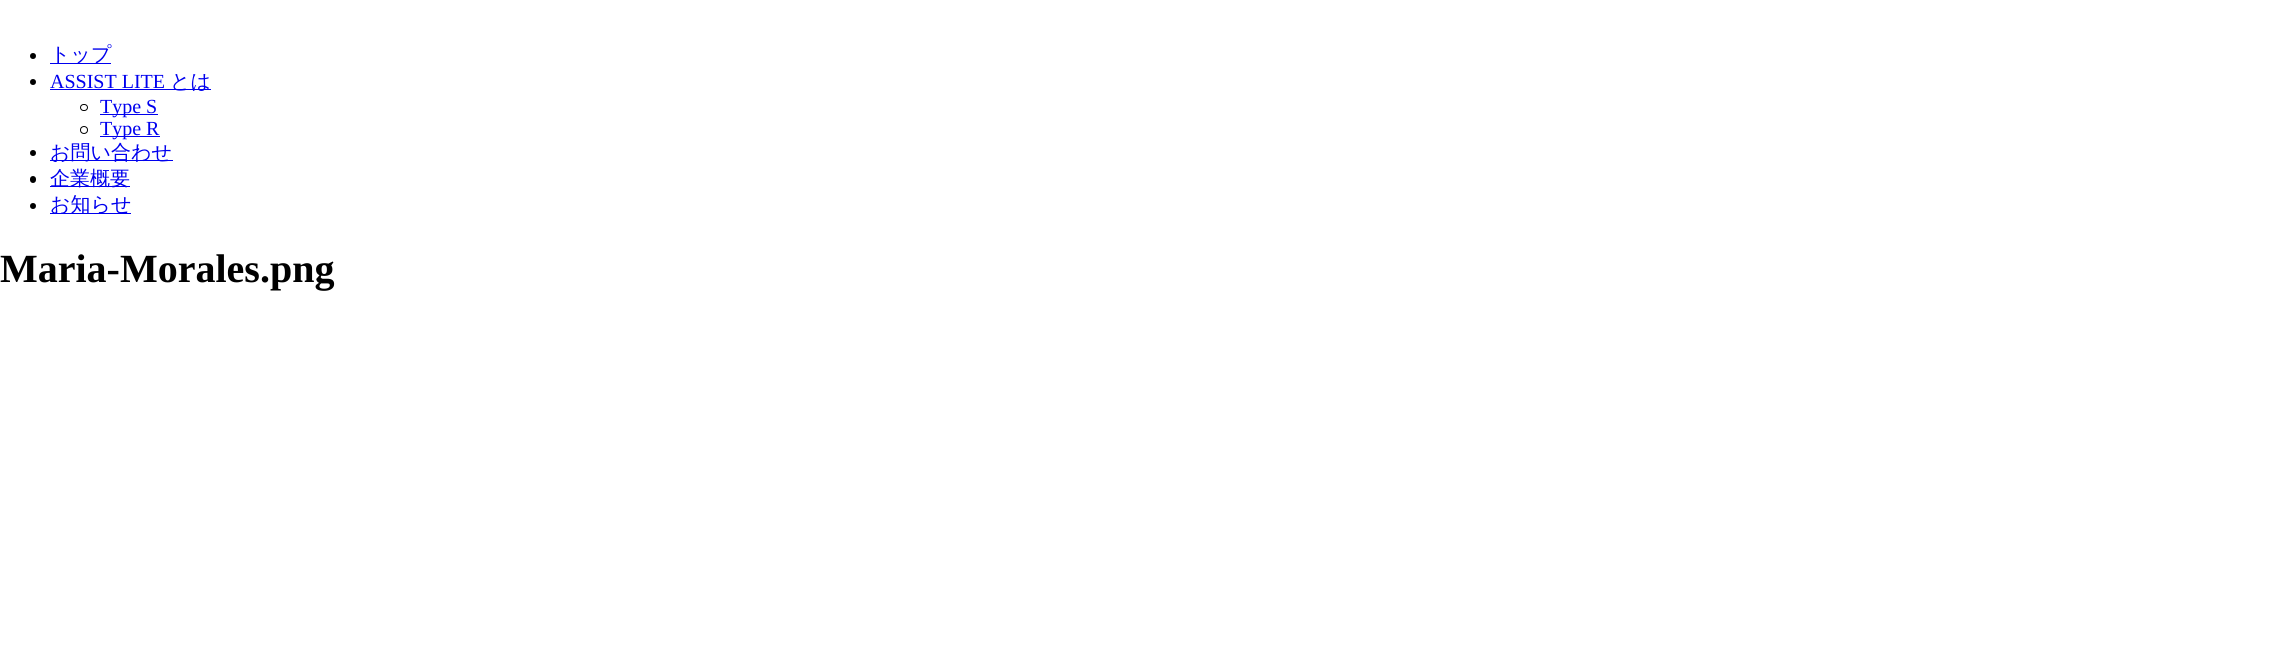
import math
import cairo


def round_path(ctx, x, y, w, h, r):
	ctx.new_sub_path()
	for i, (u, v) in enumerate([(x + w - r, y + h - r), (x + r, y + h - r), (x + r, y + r), (x + w - r, y + r)]):
		ctx.arc(u, v, r, i * math.pi / 2, (i + 1) * math.pi / 2)
	ctx.close_path()

def draw(ctx):
	ctx.set_source_rgb(1, 1, 1)
	ctx.paint()
	ctx.set_source_rgb(0, 0, 0)
	ctx.arc(33, 56, 3, 0, 2 * math.pi)
	ctx.fill()
	ctx.set_source_rgb(0, 0, 0.933)
	ctx.rectangle(50, 63, 61, 1)
	ctx.fill()
	ctx.select_font_face('WenQuanYi Zen Hei Medium')
	ctx.set_font_size(20)
	ctx.move_to(50, 61)
	ctx.show_text('トップ')
	ctx.set_source_rgb(0, 0, 0)
	ctx.new_path()
	ctx.arc(33, 82, 3, 0, 2 * math.pi)
	ctx.fill()
	ctx.select_font_face('Liberation Serif')
	ctx.set_source_rgb(0, 0, 0.933)
	ctx.move_to(50, 88)
	ctx.show_text('ASSIST LITE')
	ctx.rectangle(50, 89, 161, 1)
	ctx.fill()
	ctx.select_font_face('WenQuanYi Zen Hei Medium')
	ctx.move_to(170, 88)
	ctx.show_text('とは')
	round_path(ctx, 80.5, 104.5, 7, 6, 3)
	ctx.set_source_rgb(0, 0, 0)
	ctx.set_line_width(1)
	ctx.stroke()
	ctx.set_source_rgb(0, 0, 0.933)
	ctx.rectangle(100, 114, 58, 1)
	ctx.fill()
	ctx.select_font_face('Liberation Serif')
	ctx.move_to(100, 113)
	ctx.show_text('Type S')
	ctx.new_path()
	ctx.arc(84, 130, 3.5, 0, 2 * math.pi)
	ctx.set_source_rgb(0, 0, 0)
	ctx.stroke()
	ctx.set_source_rgb(0, 0, 0.933)
	ctx.rectangle(100, 136, 60, 1)
	ctx.fill()
	ctx.move_to(100, 135)
	ctx.show_text('Type R')
	ctx.set_source_rgb(0, 0, 0)
	ctx.new_path()
	ctx.arc(33, 153, 3, 0, 2 * math.pi)
	ctx.fill()
	ctx.set_source_rgb(0, 0, 0.933)
	ctx.rectangle(50, 160, 123, 1)
	ctx.fill()
	ctx.select_font_face('WenQuanYi Zen Hei Medium')
	ctx.move_to(50, 159)
	ctx.show_text('お問い合わせ')
	ctx.set_source_rgb(0, 0, 0)
	round_path(ctx, 30, 176, 6, 7, 3)
	ctx.fill()
	ctx.set_source_rgb(0, 0, 0.933)
	ctx.rectangle(50, 186, 80, 1)
	ctx.fill()
	ctx.move_to(50, 185)
	ctx.show_text('企業概要')
	ctx.set_source_rgb(0, 0, 0)
	ctx.new_path()
	ctx.arc(33, 206, 3, 0, 2 * math.pi)
	ctx.fill()
	ctx.set_source_rgb(0, 0, 0.933)
	ctx.rectangle(50, 213, 81, 1)
	ctx.fill()
	ctx.move_to(50, 211)
	ctx.show_text('お知らせ')
	ctx.select_font_face('Liberation Serif', cairo.FONT_SLANT_NORMAL, cairo.FONT_WEIGHT_BOLD)
	ctx.set_font_size(40)
	ctx.set_source_rgb(0, 0, 0)
	ctx.move_to(0, 282)
	ctx.show_text('Maria-Morales.png')


surface = cairo.ImageSurface(cairo.FORMAT_RGB24, 2290, 648)
ctx = cairo.Context(surface)
options = cairo.FontOptions()
options.set_hint_metrics(cairo.HINT_METRICS_OFF)
options.set_hint_style(cairo.HINT_STYLE_NONE)
ctx.set_font_options(options)
ctx.set_miter_limit(4)
draw(ctx)
surface.write_to_png('image.png')
